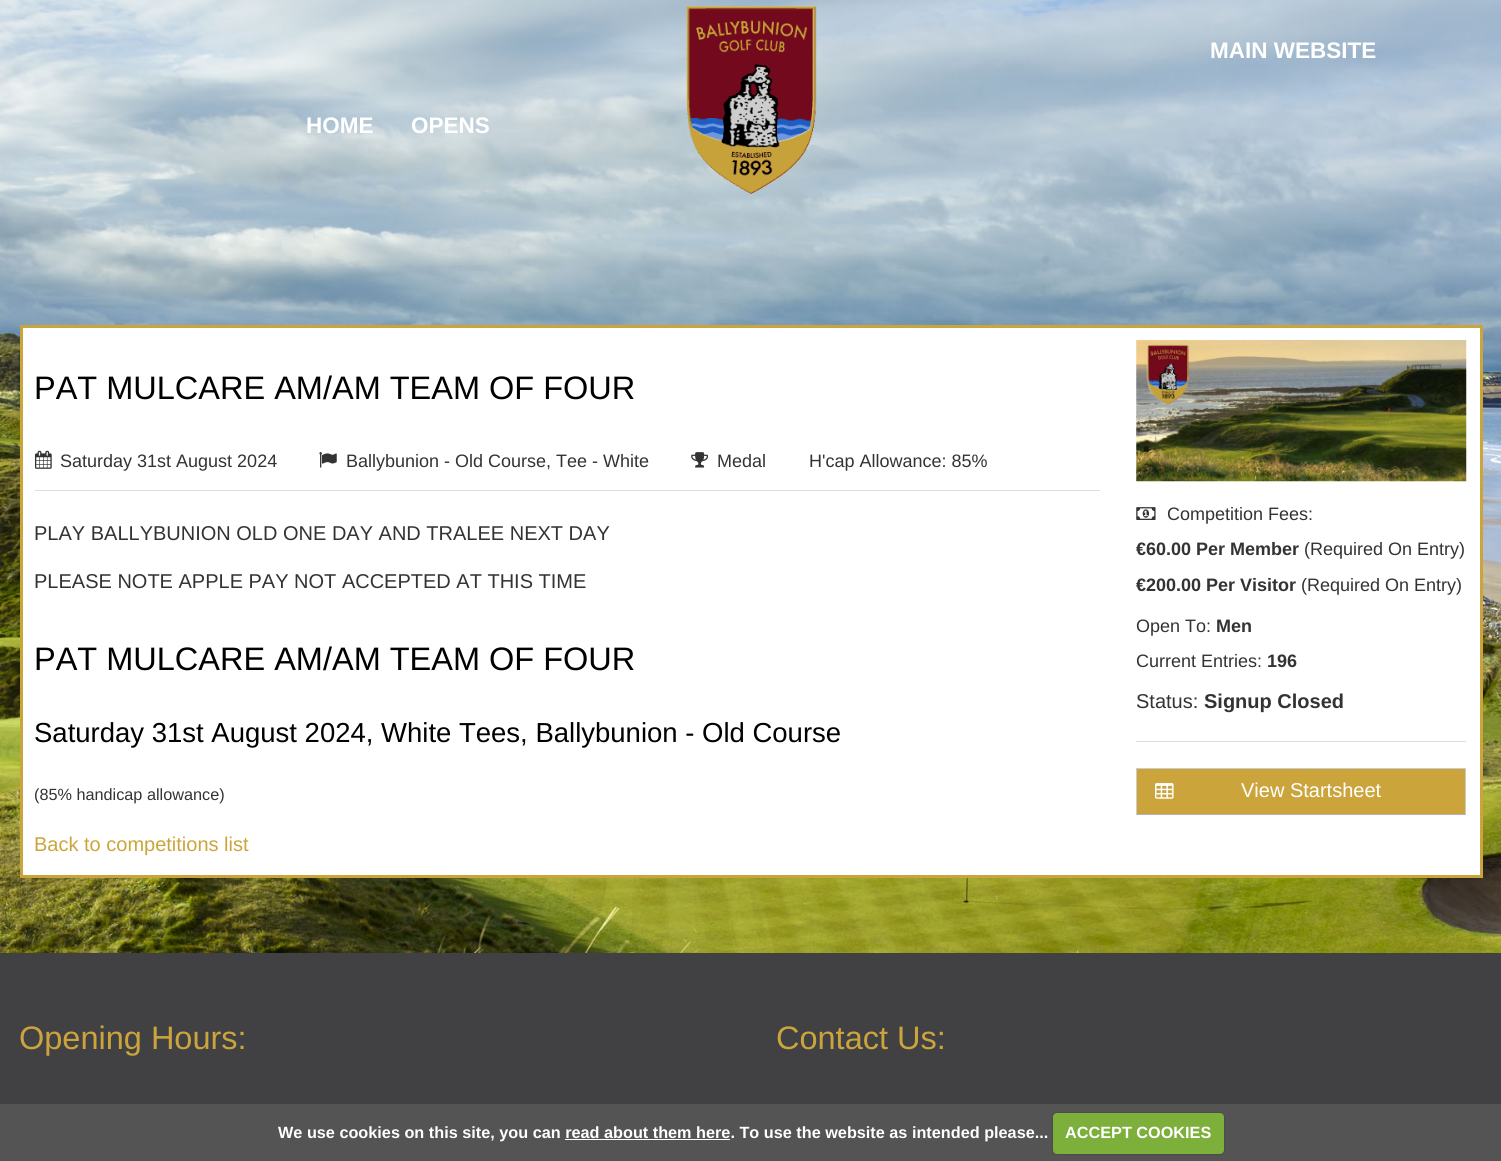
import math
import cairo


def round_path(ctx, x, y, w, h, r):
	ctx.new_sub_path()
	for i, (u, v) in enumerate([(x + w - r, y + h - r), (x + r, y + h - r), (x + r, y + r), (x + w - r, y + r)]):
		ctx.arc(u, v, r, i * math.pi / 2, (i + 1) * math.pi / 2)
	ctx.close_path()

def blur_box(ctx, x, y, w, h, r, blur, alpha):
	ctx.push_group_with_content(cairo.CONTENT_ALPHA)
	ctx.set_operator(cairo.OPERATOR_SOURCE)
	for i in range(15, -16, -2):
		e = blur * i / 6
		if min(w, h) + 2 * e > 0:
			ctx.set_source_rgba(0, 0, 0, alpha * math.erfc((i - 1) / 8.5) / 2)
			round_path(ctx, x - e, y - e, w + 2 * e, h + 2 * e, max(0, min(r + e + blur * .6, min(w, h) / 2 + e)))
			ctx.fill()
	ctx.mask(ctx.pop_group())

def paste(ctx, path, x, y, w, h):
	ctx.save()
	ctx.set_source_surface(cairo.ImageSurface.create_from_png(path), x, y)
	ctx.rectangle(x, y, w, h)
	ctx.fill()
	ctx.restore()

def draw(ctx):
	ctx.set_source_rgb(1, 1, 1)
	ctx.paint()
	paste(ctx, 'media/1.png', 0, 0, 1501, 953)
	paste(ctx, 'media/2.png', 686, 6, 131, 188)
	ctx.select_font_face('Liberation Sans', cairo.FONT_SLANT_NORMAL, cairo.FONT_WEIGHT_BOLD)
	ctx.set_font_size(22.5)
	ctx.set_source_rgb(1, 1, 1)
	for x, y, s in [
		(1210, 58, 'MAIN WEBSITE'),
		(306, 133, 'HOME'),
		(411, 133, 'OPENS'),
	]:
		ctx.move_to(x, y)
		ctx.show_text(s)
	ctx.rectangle(21.5, 326.5, 1460, 550)
	ctx.fill_preserve()
	ctx.set_source_rgb(0.796, 0.647, 0.235)
	ctx.set_line_width(3)
	ctx.stroke()
	ctx.select_font_face('Liberation Sans')
	ctx.set_font_size(32.5)
	ctx.set_source_rgb(0, 0, 0)
	ctx.move_to(34, 399)
	ctx.show_text('PAT MULCARE AM/AM TEAM OF FOUR')
	paste(ctx, 'media/3.png', 35, 450, 17, 19)
	ctx.set_font_size(18)
	ctx.set_source_rgb(0.2, 0.2, 0.2)
	ctx.move_to(60, 467)
	ctx.show_text('Saturday 31st August 2024')
	paste(ctx, 'media/4.png', 319, 452, 18, 16)
	ctx.move_to(346, 467)
	ctx.show_text('Ballybunion - Old Course, Tee - White')
	paste(ctx, 'media/5.png', 691, 452, 17, 16)
	ctx.move_to(717, 467)
	ctx.show_text('Medal')
	ctx.move_to(809, 467)
	ctx.show_text('H\'cap Allowance: 85%')
	ctx.set_source_rgb(0.867, 0.867, 0.867)
	ctx.rectangle(35, 490, 1065, 1)
	ctx.fill()
	ctx.set_font_size(20)
	ctx.set_source_rgb(0.2, 0.2, 0.2)
	ctx.move_to(34, 540)
	ctx.show_text('PLAY BALLYBUNION OLD ONE DAY AND TRALEE NEXT DAY')
	ctx.move_to(34, 588)
	ctx.show_text('PLEASE NOTE APPLE PAY NOT ACCEPTED AT THIS TIME')
	ctx.set_font_size(32.5)
	ctx.set_source_rgb(0, 0, 0)
	ctx.move_to(34, 670)
	ctx.show_text('PAT MULCARE AM/AM TEAM OF FOUR')
	ctx.set_font_size(27.5)
	ctx.move_to(34, 742)
	ctx.show_text('Saturday 31st August 2024, White Tees, Ballybunion - Old Course')
	ctx.set_font_size(16.25)
	ctx.set_source_rgb(0.2, 0.2, 0.2)
	ctx.move_to(34, 800)
	ctx.show_text('(85% handicap allowance)')
	paste(ctx, 'media/6.png', 1136, 340, 331, 142)
	paste(ctx, 'media/7.png', 1136, 507, 20, 13)
	ctx.set_font_size(18)
	ctx.move_to(1167, 520)
	ctx.show_text('Competition Fees:')
	ctx.select_font_face('Liberation Sans', cairo.FONT_SLANT_NORMAL, cairo.FONT_WEIGHT_BOLD)
	ctx.move_to(1136, 555)
	ctx.show_text('€60.00 Per Member')
	ctx.select_font_face('Liberation Sans')
	ctx.move_to(1304, 555)
	ctx.show_text('(Required On Entry)')
	ctx.select_font_face('Liberation Sans', cairo.FONT_SLANT_NORMAL, cairo.FONT_WEIGHT_BOLD)
	ctx.move_to(1136, 591)
	ctx.show_text('€200.00 Per Visitor')
	ctx.select_font_face('Liberation Sans')
	ctx.move_to(1301, 591)
	ctx.show_text('(Required On Entry)')
	ctx.move_to(1136, 632)
	ctx.show_text('Open To:')
	ctx.select_font_face('Liberation Sans', cairo.FONT_SLANT_NORMAL, cairo.FONT_WEIGHT_BOLD)
	ctx.move_to(1216, 632)
	ctx.show_text('Men')
	ctx.select_font_face('Liberation Sans')
	ctx.move_to(1136, 667)
	ctx.show_text('Current Entries:')
	ctx.select_font_face('Liberation Sans', cairo.FONT_SLANT_NORMAL, cairo.FONT_WEIGHT_BOLD)
	ctx.move_to(1267, 667)
	ctx.show_text('196')
	ctx.select_font_face('Liberation Sans')
	ctx.set_font_size(20)
	ctx.move_to(1136, 708)
	ctx.show_text('Status:')
	ctx.select_font_face('Liberation Sans', cairo.FONT_SLANT_NORMAL, cairo.FONT_WEIGHT_BOLD)
	ctx.move_to(1204, 708)
	ctx.show_text('Signup Closed')
	ctx.set_source_rgb(0.867, 0.867, 0.867)
	ctx.rectangle(1136, 741, 330, 1)
	ctx.fill()
	ctx.set_source_rgb(0.796, 0.647, 0.235)
	ctx.rectangle(1137, 769, 328, 45)
	ctx.fill()
	ctx.set_source_rgb(0.8, 0.8, 0.8)
	ctx.rectangle(1136, 768, 330, 1)
	ctx.rectangle(1465, 768, 1, 47)
	ctx.fill()
	ctx.set_source_rgb(0.702, 0.702, 0.702)
	ctx.rectangle(1136, 814, 330, 1)
	ctx.fill()
	ctx.set_source_rgb(0.8, 0.8, 0.8)
	ctx.rectangle(1136, 768, 1, 47)
	ctx.fill()
	paste(ctx, 'media/8.png', 1155, 783, 19, 16)
	ctx.select_font_face('Liberation Sans')
	ctx.set_source_rgb(1, 1, 1)
	ctx.move_to(1241, 797)
	ctx.show_text('View Startsheet')
	ctx.set_source_rgb(0.796, 0.647, 0.235)
	ctx.move_to(34, 851)
	ctx.show_text('Back to competitions list')
	ctx.set_source_rgb(0.255, 0.251, 0.259)
	ctx.rectangle(0, 953, 1501, 208)
	ctx.fill()
	ctx.set_font_size(32.5)
	ctx.set_source_rgb(0.796, 0.647, 0.235)
	ctx.move_to(19, 1049)
	ctx.show_text('Opening Hours:')
	ctx.move_to(776, 1049)
	ctx.show_text('Contact Us:')
	ctx.set_source_rgba(0.337, 0.337, 0.337, 0.95)
	ctx.rectangle(0, 1104, 1501, 57)
	ctx.fill()
	ctx.select_font_face('Liberation Sans', cairo.FONT_SLANT_NORMAL, cairo.FONT_WEIGHT_BOLD)
	ctx.set_font_size(16.25)
	ctx.set_source_rgb(1, 1, 1)
	ctx.move_to(278, 1138)
	ctx.show_text('We use cookies on this site, you can read about them here. To use the website as intended please...')
	ctx.set_source_rgb(0, 0, 0)
	blur_box(ctx, 1053, 1113, 171, 41, 4, 1, 0.25)
	ctx.set_source_rgb(0.49, 0.686, 0.231)
	round_path(ctx, 1053, 1113, 171, 41, 4)
	ctx.fill()
	ctx.set_source_rgb(1, 1, 1)
	ctx.move_to(1065, 1138)
	ctx.show_text('ACCEPT COOKIES')
	ctx.rectangle(565, 1139, 165, 1)
	ctx.fill()


surface = cairo.ImageSurface(cairo.FORMAT_RGB24, 1501, 1161)
ctx = cairo.Context(surface)
options = cairo.FontOptions()
options.set_hint_metrics(cairo.HINT_METRICS_OFF)
options.set_hint_style(cairo.HINT_STYLE_NONE)
ctx.set_font_options(options)
ctx.set_miter_limit(4)
draw(ctx)
surface.write_to_png('image.png')
